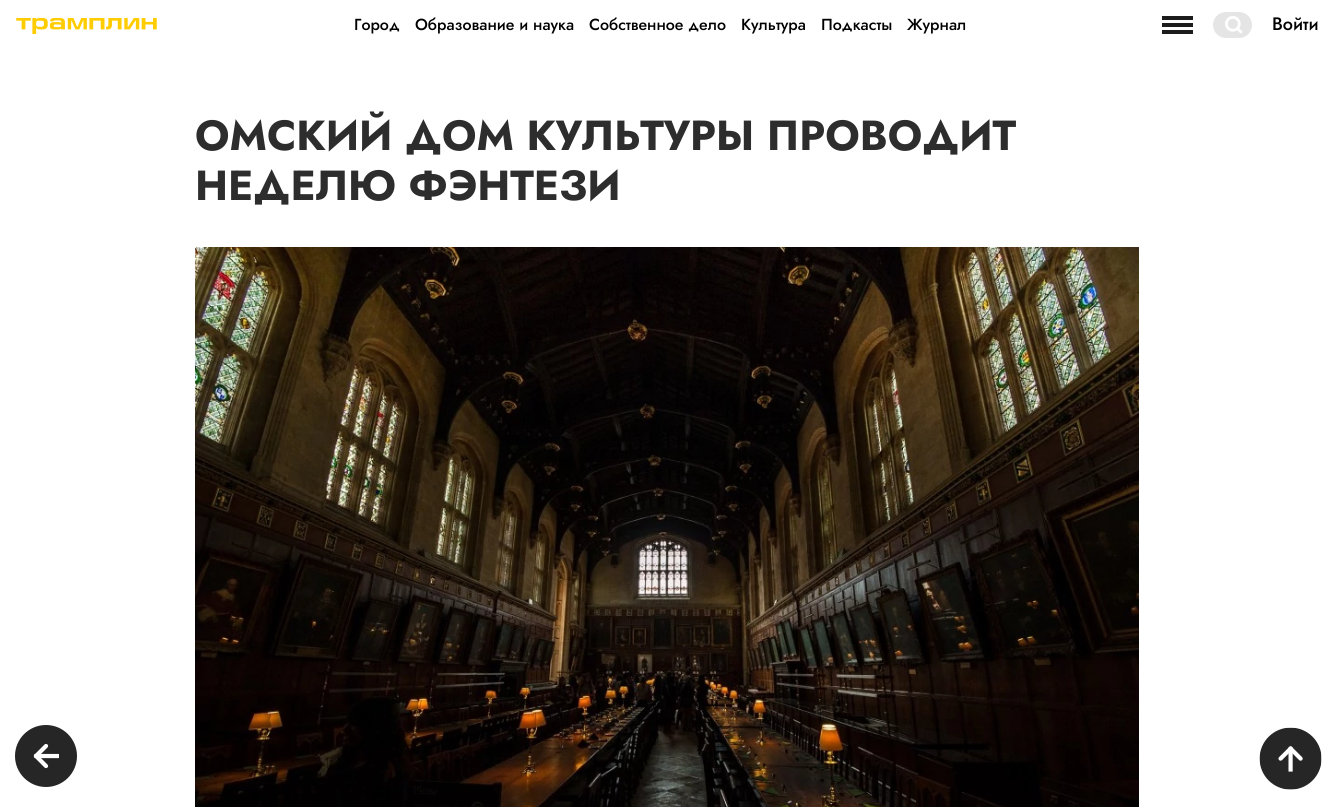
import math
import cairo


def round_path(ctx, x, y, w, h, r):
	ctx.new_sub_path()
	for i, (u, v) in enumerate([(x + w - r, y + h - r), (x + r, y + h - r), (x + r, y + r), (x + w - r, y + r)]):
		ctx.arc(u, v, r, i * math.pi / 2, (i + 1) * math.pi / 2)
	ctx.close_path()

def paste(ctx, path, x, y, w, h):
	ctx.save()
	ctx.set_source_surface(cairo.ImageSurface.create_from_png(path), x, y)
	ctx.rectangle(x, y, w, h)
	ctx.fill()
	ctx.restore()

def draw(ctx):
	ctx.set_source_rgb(1, 1, 1)
	ctx.paint()
	paste(ctx, 'media/1.png', 16, 18, 141, 16)
	ctx.select_font_face('Jost Medium')
	ctx.set_font_size(16)
	ctx.set_source_rgb(0, 0, 0)
	for x, y, s in [
		(354, 30, 'Город'),
		(415, 30, 'Образование и наука'),
		(589, 30, 'Собственное дело'),
		(741, 30, 'Культура'),
		(821, 30, 'Подкасты'),
		(907, 30, 'Журнал'),
	]:
		ctx.move_to(x, y)
		ctx.show_text(s)
	ctx.set_source_rgb(0.11, 0.11, 0.11)
	ctx.rectangle(1162, 16, 31, 4)
	ctx.rectangle(1162, 23, 31, 4)
	ctx.rectangle(1162, 30, 31, 4)
	ctx.fill()
	ctx.set_source_rgb(0.898, 0.898, 0.898)
	round_path(ctx, 1213, 12, 39, 26, 13)
	ctx.fill()
	paste(ctx, 'media/2.png', 1225, 16, 18, 18)
	ctx.set_font_size(18)
	ctx.set_source_rgb(0, 0, 0)
	ctx.move_to(1272, 30)
	ctx.show_text('Войти')
	ctx.select_font_face('Jost', cairo.FONT_SLANT_NORMAL, cairo.FONT_WEIGHT_BOLD)
	ctx.set_font_size(42)
	ctx.set_source_rgb(0.176, 0.176, 0.176)
	ctx.move_to(195, 150)
	ctx.show_text('ОМСКИЙ ДОМ КУЛЬТУРЫ ПРОВОДИТ')
	ctx.move_to(195, 200)
	ctx.show_text('НЕДЕЛЮ ФЭНТЕЗИ')
	paste(ctx, 'media/3.png', 195, 247, 944, 560)
	paste(ctx, 'media/4.png', 15, 725, 62, 62)
	paste(ctx, 'media/5.png', 1259, 727, 63, 63)


surface = cairo.ImageSurface(cairo.FORMAT_RGB24, 1334, 807)
ctx = cairo.Context(surface)
options = cairo.FontOptions()
options.set_hint_metrics(cairo.HINT_METRICS_OFF)
options.set_hint_style(cairo.HINT_STYLE_NONE)
ctx.set_font_options(options)
ctx.set_miter_limit(4)
draw(ctx)
surface.write_to_png('image.png')
